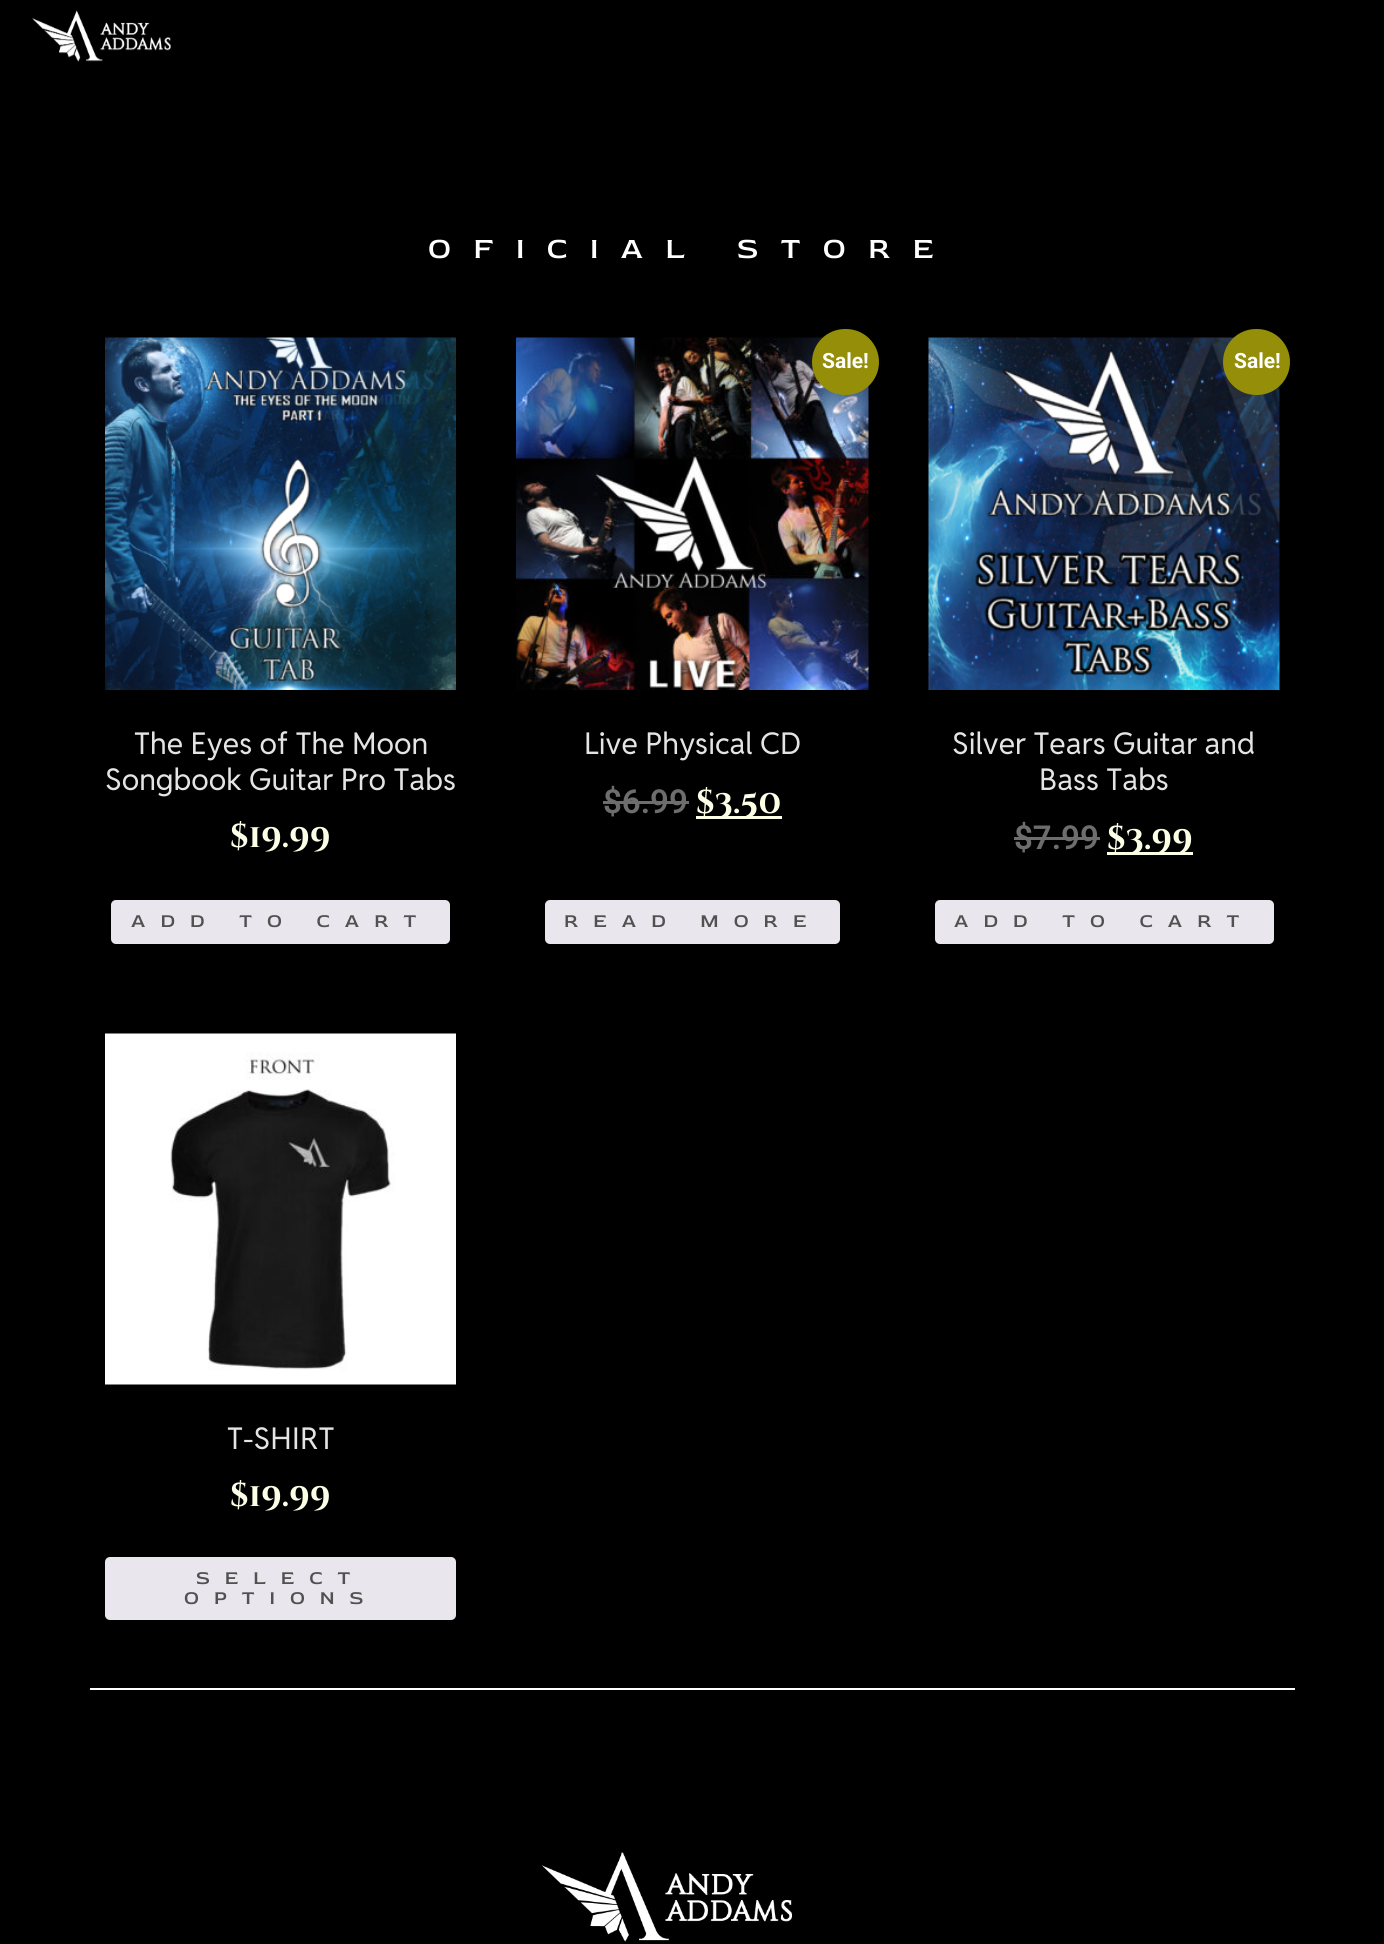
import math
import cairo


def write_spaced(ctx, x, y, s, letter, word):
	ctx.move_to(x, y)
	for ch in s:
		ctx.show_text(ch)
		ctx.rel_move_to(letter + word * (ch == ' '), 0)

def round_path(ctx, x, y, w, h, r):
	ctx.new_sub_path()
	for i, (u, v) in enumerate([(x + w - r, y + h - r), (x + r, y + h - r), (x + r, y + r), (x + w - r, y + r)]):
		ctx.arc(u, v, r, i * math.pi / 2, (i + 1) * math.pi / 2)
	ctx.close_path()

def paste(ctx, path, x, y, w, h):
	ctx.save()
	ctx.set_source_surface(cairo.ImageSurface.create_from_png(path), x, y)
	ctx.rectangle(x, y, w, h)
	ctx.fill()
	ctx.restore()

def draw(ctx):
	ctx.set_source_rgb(0, 0, 0)
	ctx.paint()
	paste(ctx, 'media/1.png', 32, 10, 139, 52)
	ctx.select_font_face('Red Rose Medium')
	ctx.set_font_size(30)
	ctx.set_source_rgb(1, 1, 1)
	write_spaced(ctx, 428, 258, 'OFICIAL STORE', 22.5, 0)
	paste(ctx, 'media/2.png', 105, 337, 351, 353)
	ctx.select_font_face('Reddit Sans')
	ctx.set_source_rgb(0.894, 0.894, 0.894)
	ctx.move_to(134, 754)
	ctx.show_text('The Eyes of The Moon')
	ctx.move_to(105, 790)
	ctx.show_text('Songbook Guitar Pro Tabs')
	ctx.select_font_face('Cinzel Decorative', cairo.FONT_SLANT_NORMAL, cairo.FONT_WEIGHT_BOLD)
	ctx.set_font_size(33)
	ctx.set_source_rgb(0.984, 1, 0.898)
	ctx.move_to(230, 847)
	ctx.show_text('$19.99')
	ctx.set_source_rgb(0.914, 0.902, 0.929)
	round_path(ctx, 111, 900, 339, 44, 5)
	ctx.fill()
	ctx.select_font_face('Red Rose Medium')
	ctx.set_font_size(19.5)
	ctx.set_source_rgb(0.318, 0.318, 0.318)
	write_spaced(ctx, 131, 927, 'ADD TO CART', 15, 0)
	paste(ctx, 'media/3.png', 516, 337, 353, 353)
	ctx.set_source_rgb(0.584, 0.557, 0.035)
	round_path(ctx, 812, 329, 67, 66, 33)
	ctx.fill()
	ctx.select_font_face('Roboto', cairo.FONT_SLANT_NORMAL, cairo.FONT_WEIGHT_BOLD)
	ctx.set_font_size(21)
	ctx.set_source_rgb(1, 1, 1)
	ctx.move_to(822, 368)
	ctx.show_text('Sale!')
	ctx.select_font_face('Reddit Sans')
	ctx.set_font_size(30)
	ctx.set_source_rgb(0.894, 0.894, 0.894)
	ctx.move_to(584, 754)
	ctx.show_text('Live Physical CD')
	ctx.select_font_face('Roboto SemiBold')
	ctx.set_font_size(33)
	ctx.set_source_rgb(0.427, 0.427, 0.427)
	ctx.move_to(603, 813)
	ctx.show_text('$6.99')
	ctx.rectangle(603, 801, 86, 3)
	ctx.fill()
	ctx.set_source_rgb(0.984, 1, 0.898)
	ctx.rectangle(696, 816, 86, 3)
	ctx.fill()
	ctx.select_font_face('Cinzel Decorative', cairo.FONT_SLANT_NORMAL, cairo.FONT_WEIGHT_BOLD)
	ctx.move_to(696, 813)
	ctx.show_text('$3.50')
	ctx.set_source_rgb(0.914, 0.902, 0.929)
	round_path(ctx, 545, 900, 295, 44, 5)
	ctx.fill()
	ctx.select_font_face('Red Rose Medium')
	ctx.set_font_size(19.5)
	ctx.set_source_rgb(0.318, 0.318, 0.318)
	write_spaced(ctx, 564, 927, 'READ MORE', 15, 0)
	paste(ctx, 'media/4.png', 928, 337, 352, 353)
	ctx.set_source_rgb(0.584, 0.557, 0.035)
	round_path(ctx, 1223, 329, 67, 66, 33)
	ctx.fill()
	ctx.select_font_face('Roboto', cairo.FONT_SLANT_NORMAL, cairo.FONT_WEIGHT_BOLD)
	ctx.set_font_size(21)
	ctx.set_source_rgb(1, 1, 1)
	ctx.move_to(1234, 368)
	ctx.show_text('Sale!')
	ctx.select_font_face('Reddit Sans')
	ctx.set_font_size(30)
	ctx.set_source_rgb(0.894, 0.894, 0.894)
	ctx.move_to(952, 754)
	ctx.show_text('Silver Tears Guitar and')
	ctx.move_to(1039, 790)
	ctx.show_text('Bass Tabs')
	ctx.select_font_face('Roboto SemiBold')
	ctx.set_font_size(33)
	ctx.set_source_rgb(0.427, 0.427, 0.427)
	ctx.move_to(1014, 849)
	ctx.show_text('$7.99')
	ctx.rectangle(1014, 837, 86, 3)
	ctx.fill()
	ctx.set_source_rgb(0.984, 1, 0.898)
	ctx.rectangle(1107, 852, 86, 3)
	ctx.fill()
	ctx.select_font_face('Cinzel Decorative', cairo.FONT_SLANT_NORMAL, cairo.FONT_WEIGHT_BOLD)
	ctx.move_to(1107, 849)
	ctx.show_text('$3.99')
	ctx.set_source_rgb(0.914, 0.902, 0.929)
	round_path(ctx, 935, 900, 339, 44, 5)
	ctx.fill()
	ctx.select_font_face('Red Rose Medium')
	ctx.set_font_size(19.5)
	ctx.set_source_rgb(0.318, 0.318, 0.318)
	write_spaced(ctx, 954, 927, 'ADD TO CART', 15, 0)
	paste(ctx, 'media/5.png', 105, 1033, 351, 352)
	ctx.select_font_face('Reddit Sans')
	ctx.set_font_size(30)
	ctx.set_source_rgb(0.894, 0.894, 0.894)
	ctx.move_to(227, 1449)
	ctx.show_text('T-SHIRT')
	ctx.select_font_face('Cinzel Decorative', cairo.FONT_SLANT_NORMAL, cairo.FONT_WEIGHT_BOLD)
	ctx.set_font_size(33)
	ctx.set_source_rgb(0.984, 1, 0.898)
	ctx.move_to(230, 1506)
	ctx.show_text('$19.99')
	ctx.set_source_rgb(0.914, 0.902, 0.929)
	round_path(ctx, 105, 1557, 351, 63, 5)
	ctx.fill()
	ctx.select_font_face('Red Rose Medium')
	ctx.set_font_size(19.5)
	ctx.set_source_rgb(0.318, 0.318, 0.318)
	write_spaced(ctx, 196, 1584, 'SELECT', 15, 0)
	write_spaced(ctx, 184, 1604, 'OPTIONS', 15, 0)
	ctx.set_source_rgb(1, 1, 1)
	ctx.rectangle(90, 1688, 1205, 2)
	ctx.fill()
	paste(ctx, 'media/6.png', 542, 1852, 251, 90)


surface = cairo.ImageSurface(cairo.FORMAT_RGB24, 1384, 1944)
ctx = cairo.Context(surface)
options = cairo.FontOptions()
options.set_hint_metrics(cairo.HINT_METRICS_OFF)
options.set_hint_style(cairo.HINT_STYLE_NONE)
ctx.set_font_options(options)
ctx.set_miter_limit(4)
draw(ctx)
surface.write_to_png('image.png')
